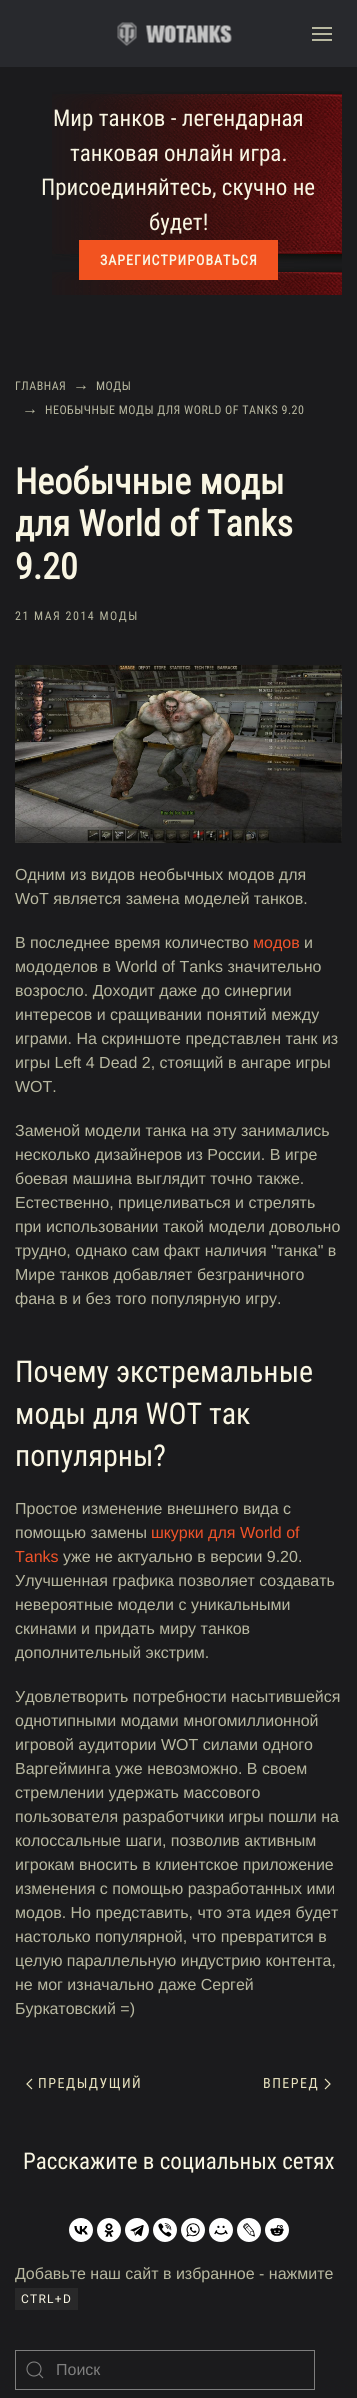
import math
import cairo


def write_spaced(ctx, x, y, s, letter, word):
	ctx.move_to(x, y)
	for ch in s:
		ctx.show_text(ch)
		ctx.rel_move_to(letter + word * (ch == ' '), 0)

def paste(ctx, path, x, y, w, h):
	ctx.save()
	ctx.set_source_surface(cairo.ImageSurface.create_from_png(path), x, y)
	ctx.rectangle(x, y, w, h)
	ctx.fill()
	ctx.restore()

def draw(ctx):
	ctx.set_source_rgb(0.106, 0.106, 0.114)
	ctx.paint()
	ctx.set_source_rgb(0.157, 0.161, 0.176)
	ctx.rectangle(0, 0, 357, 67)
	ctx.fill()
	paste(ctx, 'media/1.png', 117, 22, 115, 24)
	ctx.set_source_rgb(0.722, 0.722, 0.627)
	ctx.rectangle(312, 27, 20, 2)
	ctx.rectangle(312, 33, 20, 2)
	ctx.rectangle(312, 39, 20, 2)
	ctx.fill()
	paste(ctx, 'media/2.png', 52, 91, 290, 204)
	ctx.select_font_face('Roboto Condensed')
	ctx.set_font_size(23)
	ctx.set_source_rgb(0.976, 0.961, 0.89)
	for x, y, s in [
		(53, 126, 'Мир танков - легендарная'),
		(70, 161, 'танковая онлайн игра.'),
		(41, 195, 'Присоединяйтесь, скучно не'),
		(149, 230, 'будет!'),
	]:
		ctx.move_to(x, y)
		ctx.show_text(s)
	ctx.set_source_rgb(0.949, 0.325, 0.125)
	ctx.rectangle(79, 240, 199, 40)
	ctx.fill()
	ctx.select_font_face('Roboto Condensed', cairo.FONT_SLANT_NORMAL, cairo.FONT_WEIGHT_BOLD)
	ctx.set_font_size(14)
	ctx.set_source_rgb(0.976, 0.961, 0.89)
	write_spaced(ctx, 100, 265, 'ЗАРЕГИСТРИРОВАТЬСЯ', 1, 0)
	ctx.select_font_face('Roboto Condensed')
	ctx.set_font_size(12)
	ctx.set_source_rgb(0.722, 0.722, 0.627)
	write_spaced(ctx, 15, 390, 'ГЛАВНАЯ', 0.5, 0)
	ctx.select_font_face('Liberation Sans')
	ctx.set_font_size(16)
	ctx.move_to(73, 390)
	ctx.show_text('→')
	ctx.select_font_face('Roboto Condensed')
	ctx.set_font_size(12)
	write_spaced(ctx, 96, 390, 'МОДЫ', 0.5, 0)
	ctx.select_font_face('Liberation Sans')
	ctx.set_font_size(16)
	ctx.move_to(22, 414)
	ctx.show_text('→')
	ctx.select_font_face('Roboto Condensed')
	ctx.set_font_size(12)
	write_spaced(ctx, 45, 414, 'НЕОБЫЧНЫЕ МОДЫ ДЛЯ WORLD OF TANKS 9.20', 0.5, 0)
	ctx.select_font_face('Roboto Condensed', cairo.FONT_SLANT_NORMAL, cairo.FONT_WEIGHT_BOLD)
	ctx.set_font_size(36)
	ctx.set_source_rgb(0.976, 0.961, 0.89)
	for x, y, s in [
		(15, 494, 'Необычные моды'),
		(15, 536, 'для World of Tanks'),
		(15, 579, '9.20'),
	]:
		ctx.move_to(x, y)
		ctx.show_text(s)
	ctx.select_font_face('Roboto Condensed')
	ctx.set_font_size(12)
	ctx.set_source_rgb(0.722, 0.722, 0.627)
	write_spaced(ctx, 15, 620, '21 МАЯ 2014 МОДЫ', 1.5, 0)
	paste(ctx, 'media/3.png', 15, 665, 327, 178)
	ctx.select_font_face('Liberation Sans')
	ctx.set_font_size(16)
	for x, y, s in [
		(15, 880, 'Одним из видов необычных модов для'),
		(15, 904, 'WoT является замена моделей танков.'),
		(15, 948, 'В последнее время количество'),
	]:
		ctx.move_to(x, y)
		ctx.show_text(s)
	ctx.set_source_rgb(0.949, 0.325, 0.161)
	ctx.move_to(253, 948)
	ctx.show_text('модов')
	ctx.set_source_rgb(0.722, 0.722, 0.627)
	for x, y, s in [
		(304, 948, 'и'),
		(15, 972, 'мододелов в World of Tanks значительно'),
		(15, 996, 'возросло. Доходит даже до синергии'),
		(15, 1020, 'интересов и сращивании понятий между'),
		(15, 1044, 'играми. На скриншоте представлен танк из'),
		(15, 1068, 'игры Left 4 Dead 2, стоящий в ангаре игры'),
		(15, 1092, 'WOT.'),
		(15, 1136, 'Заменой модели танка на эту занимались'),
		(15, 1160, 'несколько дизайнеров из России. В игре'),
		(15, 1184, 'боевая машина выглядит точно также.'),
		(15, 1208, 'Естественно, прицеливаться и стрелять'),
		(15, 1232, 'при использовании такой модели довольно'),
		(15, 1256, 'трудно, однако сам факт наличия "танка" в'),
		(15, 1280, 'Мире танков добавляет безграничного'),
		(15, 1304, 'фана в и без того популярную игру.'),
	]:
		ctx.move_to(x, y)
		ctx.show_text(s)
	ctx.select_font_face('Roboto Condensed')
	ctx.set_font_size(30)
	ctx.set_source_rgb(0.976, 0.961, 0.89)
	for x, y, s in [
		(15, 1382, 'Почему экстремальные'),
		(15, 1424, 'моды для WOT так'),
		(15, 1466, 'популярны?'),
	]:
		ctx.move_to(x, y)
		ctx.show_text(s)
	ctx.select_font_face('Liberation Sans')
	ctx.set_font_size(16)
	ctx.set_source_rgb(0.722, 0.722, 0.627)
	ctx.move_to(15, 1514)
	ctx.show_text('Простое изменение внешнего вида с')
	ctx.move_to(15, 1538)
	ctx.show_text('помощью замены')
	ctx.set_source_rgb(0.949, 0.325, 0.161)
	ctx.move_to(151, 1538)
	ctx.show_text('шкурки для World of')
	ctx.move_to(15, 1562)
	ctx.show_text('Tanks')
	ctx.set_source_rgb(0.722, 0.722, 0.627)
	for x, y, s in [
		(63, 1562, 'уже не актуально в версии 9.20.'),
		(15, 1586, 'Улучшенная графика позволяет создавать'),
		(15, 1610, 'невероятные модели с уникальными'),
		(15, 1634, 'скинами и придать миру танков'),
		(15, 1658, 'дополнительный экстрим.'),
		(15, 1702, 'Удовлетворить потребности насытившейся'),
		(15, 1726, 'однотипными модами многомиллионной'),
		(15, 1750, 'игровой аудитории WOT силами одного'),
		(15, 1774, 'Варгейминга уже невозможно. В своем'),
		(15, 1798, 'стремлении удержать массового'),
		(15, 1822, 'пользователя разработчики игры пошли на'),
		(15, 1846, 'колоссальные шаги, позволив активным'),
		(15, 1870, 'игрокам вносить в клиентское приложение'),
		(15, 1894, 'изменения с помощью разработанных ими'),
		(15, 1918, 'модов. Но представить, что эта идея будет'),
		(15, 1942, 'настолько популярной, что превратится в'),
		(15, 1966, 'целую параллельную индустрию контента,'),
		(15, 1990, 'не мог изначально даже Сергей'),
		(15, 2014, 'Буркатовский =)'),
	]:
		ctx.move_to(x, y)
		ctx.show_text(s)
	ctx.new_path()
	ctx.move_to(32, 2079)
	ctx.line_to(27, 2084)
	ctx.line_to(32, 2089)
	ctx.set_source_rgb(0.914, 0.89, 0.749)
	ctx.set_line_width(1.2)
	ctx.stroke()
	ctx.select_font_face('Roboto Condensed')
	ctx.set_font_size(14)
	write_spaced(ctx, 38, 2088, 'ПРЕДЫДУЩИЙ', 1.5, 0)
	write_spaced(ctx, 263, 2088, 'ВПЕРЕД', 1.5, 0)
	ctx.new_path()
	ctx.move_to(325, 2079)
	ctx.line_to(330, 2084)
	ctx.line_to(325, 2089)
	ctx.stroke()
	ctx.set_font_size(23)
	ctx.set_source_rgb(0.976, 0.961, 0.89)
	ctx.move_to(23, 2169)
	ctx.show_text('Расскажите в социальных сетях')
	ctx.set_source_rgb(1, 1, 1)
	ctx.new_path()
	ctx.arc(81, 2230, 12, 0, 2 * math.pi)
	ctx.fill()
	paste(ctx, 'media/4.png', 74, 2226, 14, 9)
	ctx.arc(109, 2230, 12, 0, 2 * math.pi)
	ctx.fill()
	paste(ctx, 'media/5.png', 104, 2223, 10, 14)
	ctx.arc(137, 2230, 12, 0, 2 * math.pi)
	ctx.fill()
	paste(ctx, 'media/6.png', 130, 2225, 14, 12)
	ctx.arc(165, 2230, 12, 0, 2 * math.pi)
	ctx.fill()
	paste(ctx, 'media/7.png', 158, 2223, 14, 14)
	ctx.arc(193, 2230, 12, 0, 2 * math.pi)
	ctx.fill()
	paste(ctx, 'media/8.png', 186, 2223, 14, 14)
	ctx.arc(221, 2230, 12, 0, 2 * math.pi)
	ctx.fill()
	paste(ctx, 'media/9.png', 214, 2225, 14, 10)
	ctx.arc(249, 2230, 12, 0, 2 * math.pi)
	ctx.fill()
	paste(ctx, 'media/10.png', 243, 2223, 12, 14)
	ctx.arc(277, 2230, 12, 0, 2 * math.pi)
	ctx.fill()
	paste(ctx, 'media/11.png', 270, 2225, 14, 11)
	ctx.select_font_face('Liberation Sans')
	ctx.set_font_size(16)
	ctx.set_source_rgb(0.722, 0.722, 0.627)
	ctx.move_to(15, 2279)
	ctx.show_text('Добавьте наш сайт в избранное - нажмите')
	ctx.set_source_rgb(0.157, 0.157, 0.161)
	ctx.rectangle(15, 2288, 63, 22)
	ctx.fill()
	ctx.select_font_face('Roboto')
	ctx.set_font_size(12)
	ctx.set_source_rgb(0.976, 0.961, 0.89)
	write_spaced(ctx, 21, 2303, 'CTRL+D', 1.25, 0)
	ctx.rectangle(15.5, 2350.5, 299, 39)
	ctx.set_source_rgb(0.494, 0.494, 0.494)
	ctx.set_line_width(1)
	ctx.stroke()
	ctx.arc(34, 2369, 7, 0, 2 * math.pi)
	ctx.set_line_width(1.1)
	ctx.stroke()
	ctx.new_path()
	ctx.move_to(39, 2374)
	ctx.line_to(43, 2378)
	ctx.close_path()
	ctx.stroke()
	ctx.select_font_face('Liberation Sans')
	ctx.set_font_size(16)
	ctx.move_to(56, 2375)
	ctx.show_text('Поиск')


surface = cairo.ImageSurface(cairo.FORMAT_RGB24, 357, 2398)
ctx = cairo.Context(surface)
options = cairo.FontOptions()
options.set_hint_metrics(cairo.HINT_METRICS_OFF)
options.set_hint_style(cairo.HINT_STYLE_NONE)
ctx.set_font_options(options)
ctx.set_miter_limit(4)
draw(ctx)
surface.write_to_png('image.png')
